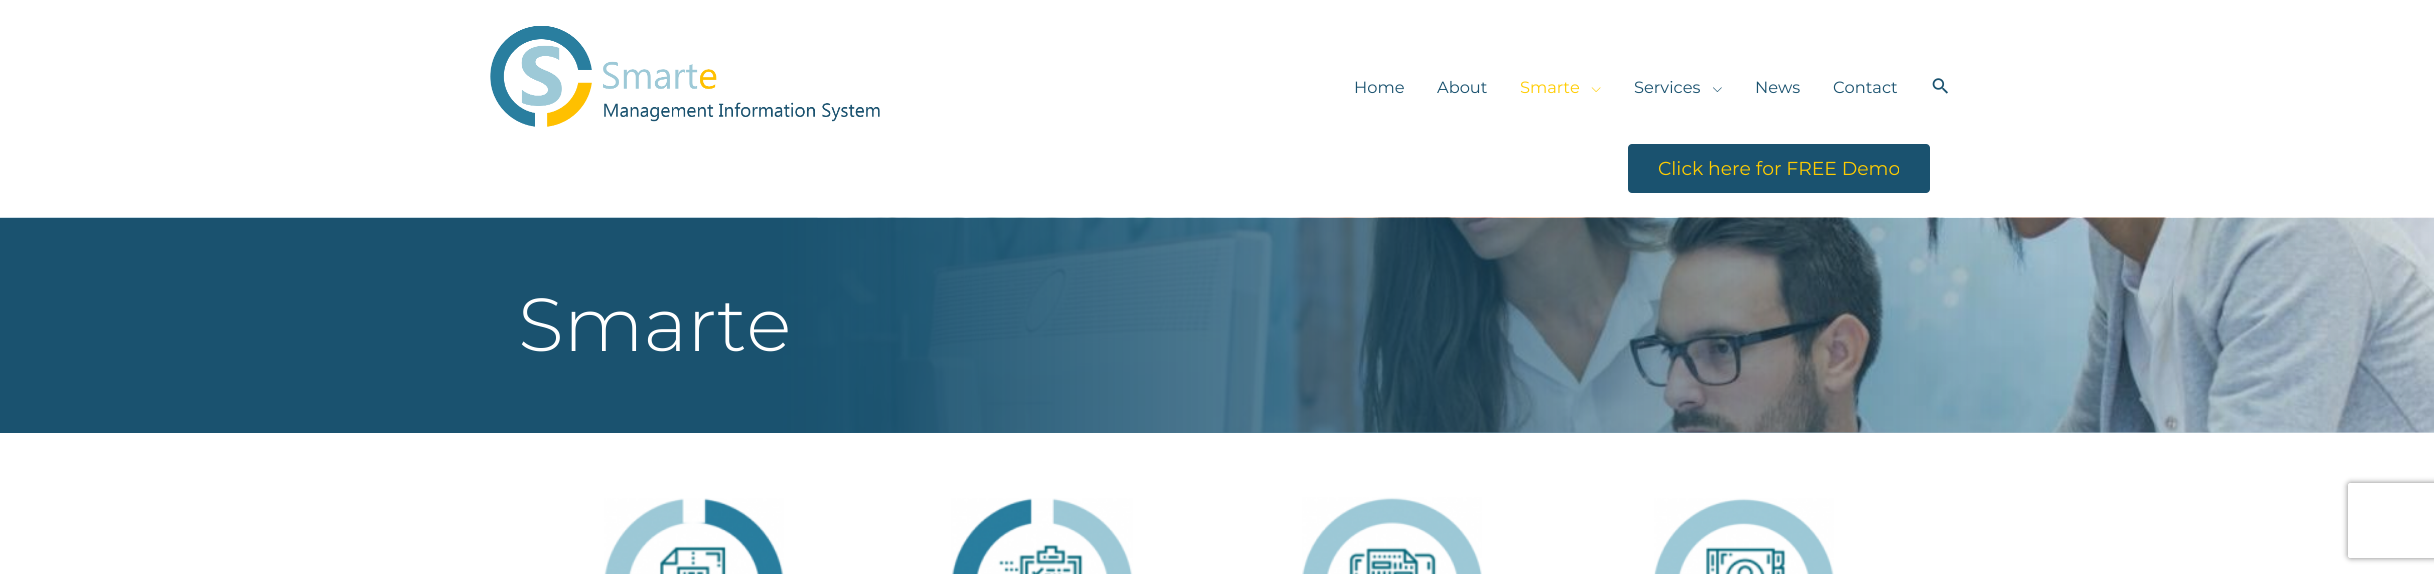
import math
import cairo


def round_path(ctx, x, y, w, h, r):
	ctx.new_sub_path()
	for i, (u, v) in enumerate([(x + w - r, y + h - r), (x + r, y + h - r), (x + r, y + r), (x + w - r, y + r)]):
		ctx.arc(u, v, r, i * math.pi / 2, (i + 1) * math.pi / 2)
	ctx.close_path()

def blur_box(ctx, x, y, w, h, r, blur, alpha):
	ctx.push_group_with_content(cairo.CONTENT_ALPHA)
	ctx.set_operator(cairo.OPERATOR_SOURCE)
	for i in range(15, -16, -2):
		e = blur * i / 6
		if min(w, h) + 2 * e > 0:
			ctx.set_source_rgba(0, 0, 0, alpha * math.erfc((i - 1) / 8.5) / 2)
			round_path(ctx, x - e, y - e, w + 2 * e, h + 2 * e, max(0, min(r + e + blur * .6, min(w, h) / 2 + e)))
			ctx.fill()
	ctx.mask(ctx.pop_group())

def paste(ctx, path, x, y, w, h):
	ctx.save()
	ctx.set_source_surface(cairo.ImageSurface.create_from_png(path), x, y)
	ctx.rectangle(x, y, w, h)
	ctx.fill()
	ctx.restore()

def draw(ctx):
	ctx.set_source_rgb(1, 1, 1)
	ctx.paint()
	paste(ctx, 'media/1.png', 490, 26, 390, 101)
	ctx.select_font_face('Montserrat')
	ctx.set_font_size(16.25)
	ctx.set_source_rgb(0.102, 0.322, 0.435)
	ctx.move_to(1354, 93)
	ctx.show_text('Home')
	ctx.move_to(1437, 93)
	ctx.show_text('About')
	ctx.set_source_rgb(1, 0.8, 0)
	ctx.move_to(1520, 93)
	ctx.show_text('Smarte')
	paste(ctx, 'media/2.png', 1591, 87, 10, 5)
	ctx.set_source_rgb(0.102, 0.322, 0.435)
	ctx.move_to(1634, 93)
	ctx.show_text('Services')
	paste(ctx, 'media/3.png', 1713, 87, 9, 5)
	ctx.move_to(1755, 93)
	ctx.show_text('News')
	ctx.move_to(1833, 93)
	ctx.show_text('Contact')
	paste(ctx, 'media/4.png', 1932, 78, 16, 16)
	round_path(ctx, 1628, 144, 302, 49, 4)
	ctx.fill()
	ctx.set_font_size(18.75)
	ctx.set_source_rgb(1, 0.8, 0)
	ctx.move_to(1658, 175)
	ctx.show_text('Click here for FREE Demo')
	paste(ctx, 'media/5.png', 0, 217, 2434, 216)
	gradient = cairo.LinearGradient(0, 325, 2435, 325)
	gradient.add_color_stop_rgba(0.32, 0.102, 0.322, 0.435, 1)
	gradient.add_color_stop_rgba(1, 0.102, 0.322, 0.435, 0.14)
	ctx.set_source(gradient)
	ctx.rectangle(0, 218, 2434, 215)
	ctx.fill()
	ctx.select_font_face('Montserrat Light')
	ctx.set_font_size(75)
	ctx.set_source_rgb(1, 1, 1)
	ctx.move_to(518, 351)
	ctx.show_text('Smarte')
	paste(ctx, 'media/6.png', 604, 498, 180, 76)
	paste(ctx, 'media/7.png', 951, 498, 182, 76)
	paste(ctx, 'media/8.png', 1302, 497, 180, 77)
	paste(ctx, 'media/9.png', 1654, 498, 180, 76)
	ctx.save()
	ctx.set_fill_rule(cairo.FILL_RULE_EVEN_ODD)
	ctx.new_path()
	ctx.move_to(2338, 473)
	ctx.line_to(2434, 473)
	ctx.line_to(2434, 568)
	ctx.line_to(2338, 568)
	ctx.close_path()
	ctx.move_to(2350.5, 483)
	ctx.line_to(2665.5, 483)
	ctx.curve_to(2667, 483, 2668, 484, 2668, 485.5)
	ctx.line_to(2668, 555.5)
	ctx.curve_to(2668, 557, 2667, 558, 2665.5, 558)
	ctx.line_to(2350.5, 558)
	ctx.curve_to(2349, 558, 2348, 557, 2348, 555.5)
	ctx.line_to(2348, 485.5)
	ctx.curve_to(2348, 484, 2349, 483, 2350.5, 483)
	ctx.close_path()
	ctx.clip()
	ctx.set_source_rgb(0.502, 0.502, 0.502)
	blur_box(ctx, 2348, 483, 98, 75, 2.5, 3, 1)
	ctx.restore()


surface = cairo.ImageSurface(cairo.FORMAT_RGB24, 2434, 574)
ctx = cairo.Context(surface)
options = cairo.FontOptions()
options.set_hint_metrics(cairo.HINT_METRICS_OFF)
options.set_hint_style(cairo.HINT_STYLE_NONE)
ctx.set_font_options(options)
ctx.set_miter_limit(4)
draw(ctx)
surface.write_to_png('image.png')
